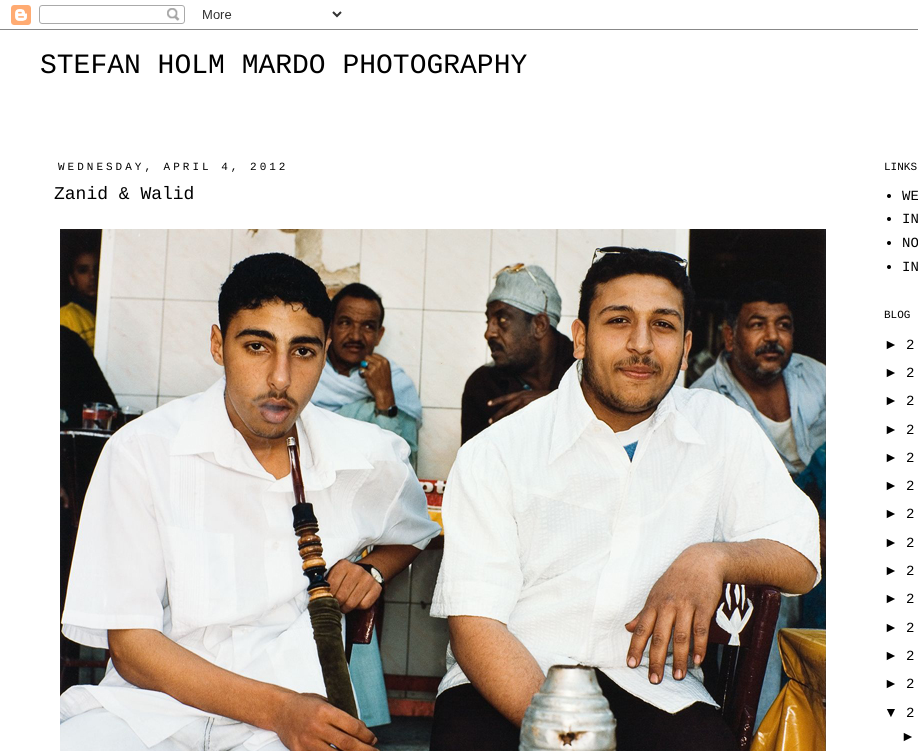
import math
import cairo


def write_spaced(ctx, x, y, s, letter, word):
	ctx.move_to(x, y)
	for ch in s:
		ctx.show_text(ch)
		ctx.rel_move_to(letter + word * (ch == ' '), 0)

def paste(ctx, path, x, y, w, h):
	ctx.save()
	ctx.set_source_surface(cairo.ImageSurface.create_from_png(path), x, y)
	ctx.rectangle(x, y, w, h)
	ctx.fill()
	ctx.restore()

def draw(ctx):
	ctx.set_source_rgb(1, 1, 1)
	ctx.paint()
	paste(ctx, 'media/1.png', 0, 5, 918, 25)
	ctx.select_font_face('Liberation Mono')
	ctx.set_font_size(28)
	ctx.set_source_rgb(0, 0, 0)
	ctx.move_to(40, 73)
	ctx.show_text('STEFAN HOLM MARDO PHOTOGRAPHY')
	ctx.set_font_size(11)
	write_spaced(ctx, 58, 170, 'WEDNESDAY, APRIL 4, 2012', 3, 0)
	ctx.set_font_size(18)
	ctx.move_to(54, 199)
	ctx.show_text('Zanid & Walid')
	paste(ctx, 'media/2.png', 60, 229, 766, 522)
	ctx.set_font_size(11)
	ctx.move_to(884, 170)
	ctx.show_text('LINKS')
	ctx.new_path()
	ctx.arc(889, 196, 2, 0, 2 * math.pi)
	ctx.fill()
	ctx.set_font_size(14)
	ctx.move_to(902, 200)
	ctx.show_text('WE')
	ctx.new_path()
	ctx.arc(889, 219, 2, 0, 2 * math.pi)
	ctx.fill()
	ctx.move_to(902, 223)
	ctx.show_text('IN')
	ctx.new_path()
	ctx.arc(889, 243, 2, 0, 2 * math.pi)
	ctx.fill()
	ctx.move_to(902, 247)
	ctx.show_text('NO')
	ctx.new_path()
	ctx.arc(889, 267, 2, 0, 2 * math.pi)
	ctx.fill()
	ctx.move_to(902, 271)
	ctx.show_text('IN')
	ctx.set_font_size(11)
	ctx.move_to(884, 318)
	ctx.show_text('BLOG')
	ctx.select_font_face('Liberation Sans')
	ctx.set_font_size(14)
	ctx.move_to(884, 349)
	ctx.show_text('►')
	ctx.select_font_face('Liberation Mono')
	ctx.move_to(906, 349)
	ctx.show_text('2')
	ctx.select_font_face('Liberation Sans')
	ctx.move_to(884, 377)
	ctx.show_text('►')
	ctx.select_font_face('Liberation Mono')
	ctx.move_to(906, 377)
	ctx.show_text('2')
	ctx.select_font_face('Liberation Sans')
	ctx.move_to(884, 405)
	ctx.show_text('►')
	ctx.select_font_face('Liberation Mono')
	ctx.move_to(906, 405)
	ctx.show_text('2')
	ctx.select_font_face('Liberation Sans')
	ctx.move_to(884, 434)
	ctx.show_text('►')
	ctx.select_font_face('Liberation Mono')
	ctx.move_to(906, 434)
	ctx.show_text('2')
	ctx.select_font_face('Liberation Sans')
	ctx.move_to(884, 462)
	ctx.show_text('►')
	ctx.select_font_face('Liberation Mono')
	ctx.move_to(906, 462)
	ctx.show_text('2')
	ctx.select_font_face('Liberation Sans')
	ctx.move_to(884, 490)
	ctx.show_text('►')
	ctx.select_font_face('Liberation Mono')
	ctx.move_to(906, 490)
	ctx.show_text('2')
	ctx.select_font_face('Liberation Sans')
	ctx.move_to(884, 518)
	ctx.show_text('►')
	ctx.select_font_face('Liberation Mono')
	ctx.move_to(906, 518)
	ctx.show_text('2')
	ctx.select_font_face('Liberation Sans')
	ctx.move_to(884, 547)
	ctx.show_text('►')
	ctx.select_font_face('Liberation Mono')
	ctx.move_to(906, 547)
	ctx.show_text('2')
	ctx.select_font_face('Liberation Sans')
	ctx.move_to(884, 575)
	ctx.show_text('►')
	ctx.select_font_face('Liberation Mono')
	ctx.move_to(906, 575)
	ctx.show_text('2')
	ctx.select_font_face('Liberation Sans')
	ctx.move_to(884, 603)
	ctx.show_text('►')
	ctx.select_font_face('Liberation Mono')
	ctx.move_to(906, 603)
	ctx.show_text('2')
	ctx.select_font_face('Liberation Sans')
	ctx.move_to(884, 632)
	ctx.show_text('►')
	ctx.select_font_face('Liberation Mono')
	ctx.move_to(906, 632)
	ctx.show_text('2')
	ctx.select_font_face('Liberation Sans')
	ctx.move_to(884, 660)
	ctx.show_text('►')
	ctx.select_font_face('Liberation Mono')
	ctx.move_to(906, 660)
	ctx.show_text('2')
	ctx.select_font_face('Liberation Sans')
	ctx.move_to(884, 688)
	ctx.show_text('►')
	ctx.select_font_face('Liberation Mono')
	ctx.move_to(906, 688)
	ctx.show_text('2')
	ctx.select_font_face('Liberation Sans')
	ctx.move_to(884, 717)
	ctx.show_text('▼')
	ctx.select_font_face('Liberation Mono')
	ctx.move_to(906, 717)
	ctx.show_text('2')
	ctx.select_font_face('Liberation Sans')
	ctx.move_to(901, 741)
	ctx.show_text('►')


surface = cairo.ImageSurface(cairo.FORMAT_RGB24, 918, 751)
ctx = cairo.Context(surface)
options = cairo.FontOptions()
options.set_hint_metrics(cairo.HINT_METRICS_OFF)
options.set_hint_style(cairo.HINT_STYLE_NONE)
ctx.set_font_options(options)
ctx.set_miter_limit(4)
draw(ctx)
surface.write_to_png('image.png')
